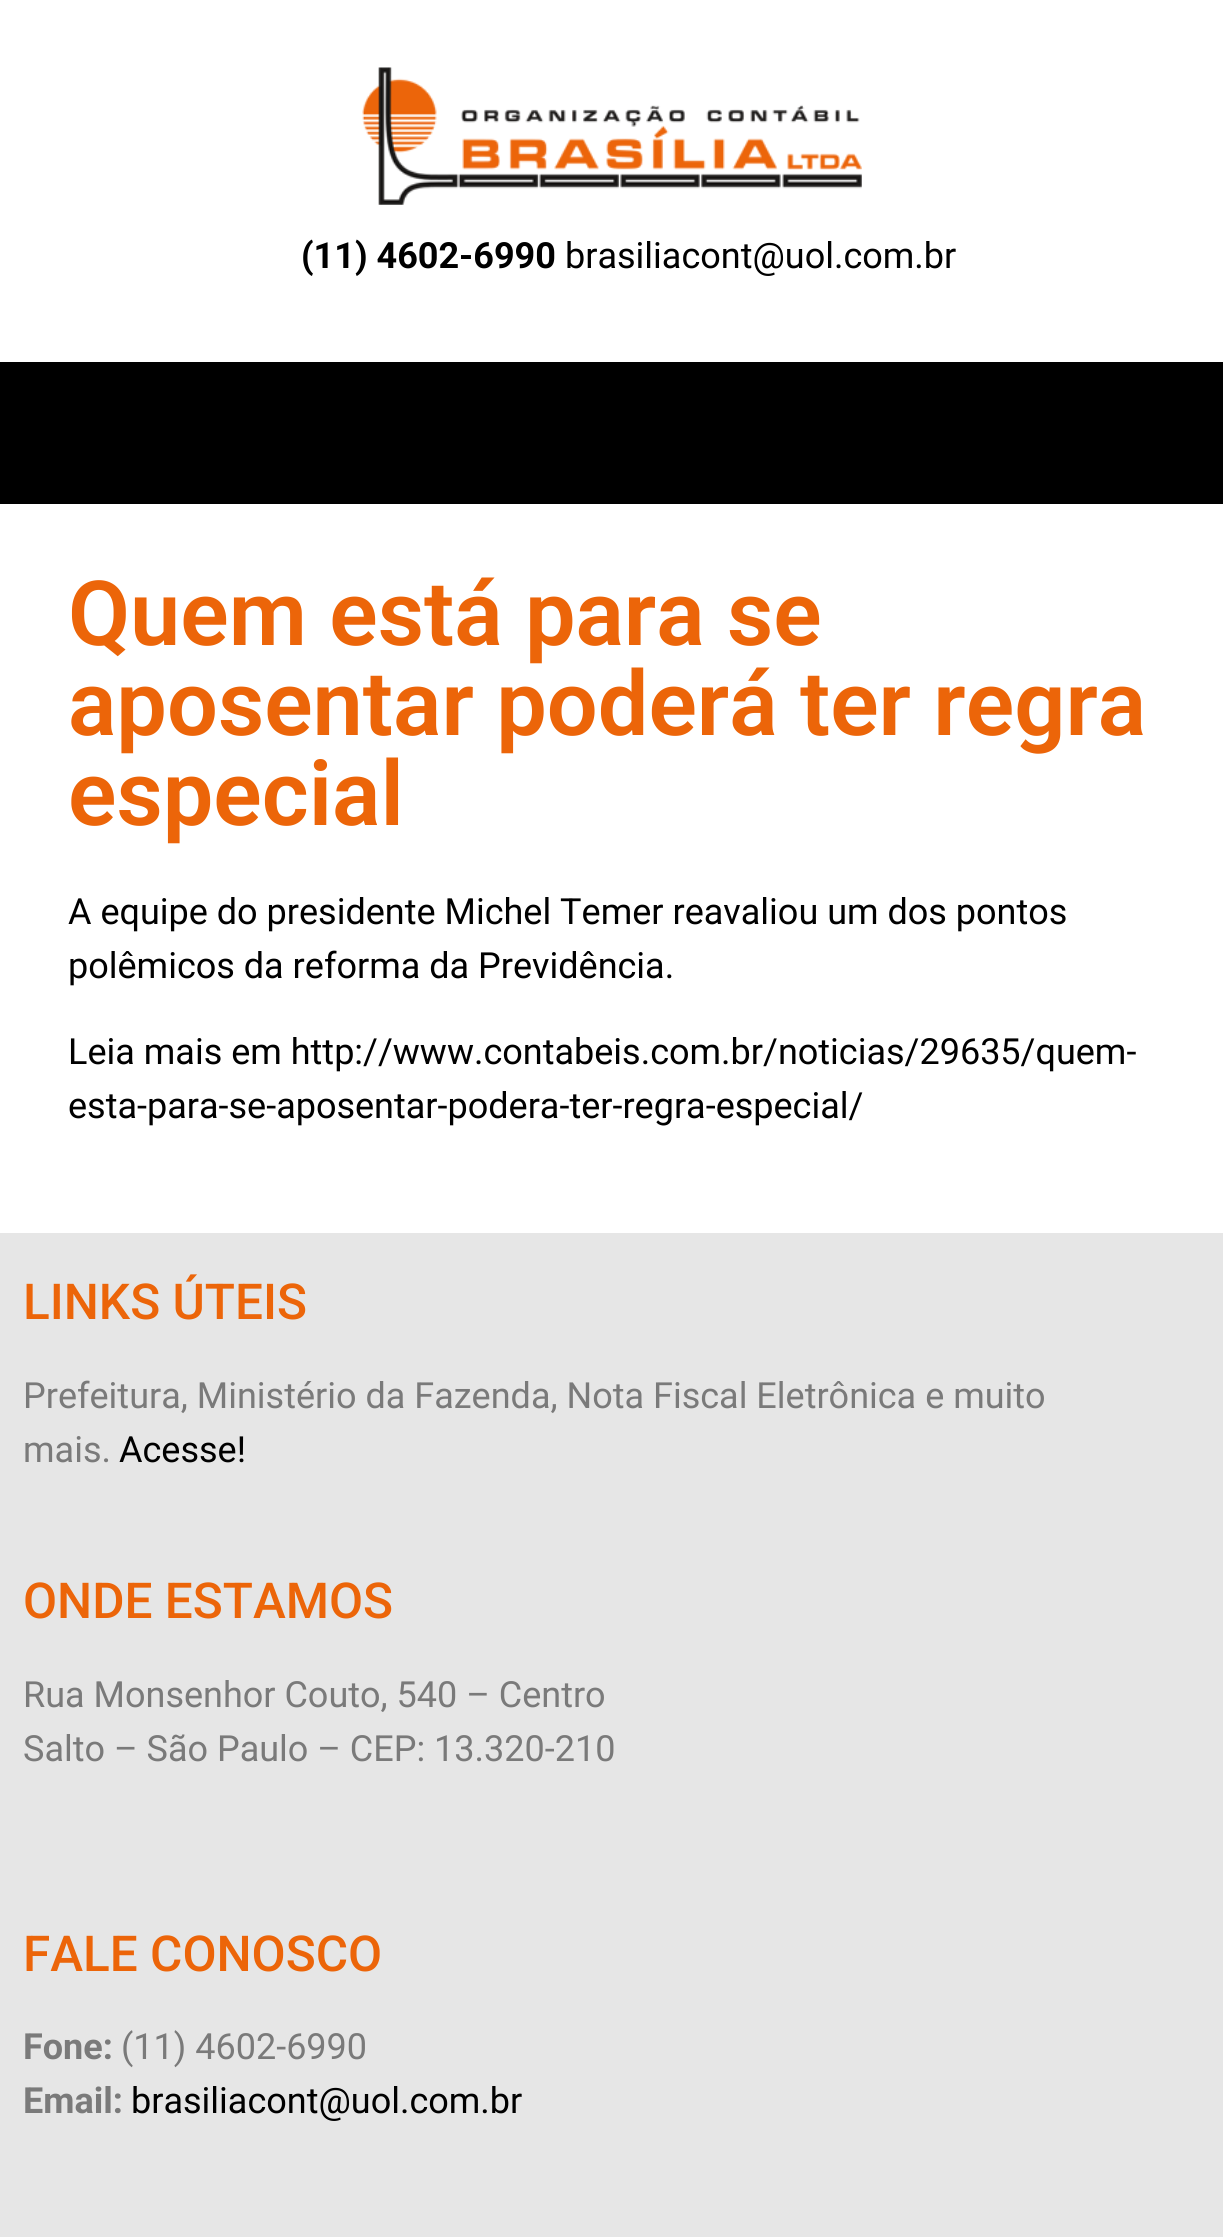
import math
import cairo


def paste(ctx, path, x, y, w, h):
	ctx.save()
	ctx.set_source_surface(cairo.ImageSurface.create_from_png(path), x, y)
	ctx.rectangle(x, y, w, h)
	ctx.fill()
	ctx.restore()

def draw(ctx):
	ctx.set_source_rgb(1, 1, 1)
	ctx.paint()
	paste(ctx, 'media/1.png', 362, 67, 500, 138)
	ctx.select_font_face('Roboto', cairo.FONT_SLANT_NORMAL, cairo.FONT_WEIGHT_BOLD)
	ctx.set_font_size(36)
	ctx.set_source_rgb(0, 0, 0)
	ctx.move_to(301, 268)
	ctx.show_text('(11) 4602-6990')
	ctx.select_font_face('Roboto')
	ctx.move_to(565, 268)
	ctx.show_text('brasiliacont@uol.com.br')
	ctx.rectangle(0, 362, 1223, 142)
	ctx.fill()
	ctx.select_font_face('Roboto SemiBold')
	ctx.set_font_size(90)
	ctx.set_source_rgb(0.925, 0.396, 0.039)
	for x, y, s in [
		(68, 645, 'Quem está para se'),
		(68, 735, 'aposentar poderá ter regra'),
		(68, 825, 'especial'),
	]:
		ctx.move_to(x, y)
		ctx.show_text(s)
	ctx.select_font_face('Roboto')
	ctx.set_font_size(36)
	ctx.set_source_rgb(0, 0, 0)
	for x, y, s in [
		(68, 924, 'A equipe do presidente Michel Temer reavaliou um dos pontos'),
		(68, 978, 'polêmicos da reforma da Previdência.'),
		(68, 1064, 'Leia mais em http://www.contabeis.com.br/noticias/29635/quem-'),
		(68, 1118, 'esta-para-se-aposentar-podera-ter-regra-especial/'),
	]:
		ctx.move_to(x, y)
		ctx.show_text(s)
	ctx.set_source_rgb(0.902, 0.902, 0.902)
	ctx.rectangle(0, 1233, 1223, 1004)
	ctx.fill()
	ctx.select_font_face('Roboto Medium')
	ctx.set_font_size(49.5)
	ctx.set_source_rgb(0.925, 0.396, 0.039)
	ctx.move_to(23, 1319)
	ctx.show_text('LINKS ÚTEIS')
	ctx.select_font_face('Roboto')
	ctx.set_font_size(36)
	ctx.set_source_rgb(0.478, 0.478, 0.478)
	ctx.move_to(23, 1408)
	ctx.show_text('Prefeitura, Ministério da Fazenda, Nota Fiscal Eletrônica e muito')
	ctx.move_to(23, 1462)
	ctx.show_text('mais.')
	ctx.set_source_rgb(0, 0, 0)
	ctx.move_to(119, 1462)
	ctx.show_text('Acesse!')
	ctx.select_font_face('Roboto Medium')
	ctx.set_font_size(49.5)
	ctx.set_source_rgb(0.925, 0.396, 0.039)
	ctx.move_to(23, 1618)
	ctx.show_text('ONDE ESTAMOS')
	ctx.select_font_face('Roboto')
	ctx.set_font_size(36)
	ctx.set_source_rgb(0.478, 0.478, 0.478)
	ctx.move_to(23, 1707)
	ctx.show_text('Rua Monsenhor Couto, 540 – Centro')
	ctx.move_to(23, 1761)
	ctx.show_text('Salto – São Paulo – CEP: 13.320-210')
	ctx.select_font_face('Roboto Medium')
	ctx.set_font_size(49.5)
	ctx.set_source_rgb(0.925, 0.396, 0.039)
	ctx.move_to(23, 1971)
	ctx.show_text('FALE CONOSCO')
	ctx.select_font_face('Roboto', cairo.FONT_SLANT_NORMAL, cairo.FONT_WEIGHT_BOLD)
	ctx.set_font_size(36)
	ctx.set_source_rgb(0.478, 0.478, 0.478)
	ctx.move_to(23, 2059)
	ctx.show_text('Fone:')
	ctx.select_font_face('Roboto')
	ctx.move_to(121, 2059)
	ctx.show_text('(11) 4602-6990')
	ctx.select_font_face('Roboto', cairo.FONT_SLANT_NORMAL, cairo.FONT_WEIGHT_BOLD)
	ctx.move_to(23, 2113)
	ctx.show_text('Email:')
	ctx.select_font_face('Roboto')
	ctx.set_source_rgb(0, 0, 0)
	ctx.move_to(131, 2113)
	ctx.show_text('brasiliacont@uol.com.br')


surface = cairo.ImageSurface(cairo.FORMAT_RGB24, 1223, 2237)
ctx = cairo.Context(surface)
options = cairo.FontOptions()
options.set_hint_metrics(cairo.HINT_METRICS_OFF)
options.set_hint_style(cairo.HINT_STYLE_NONE)
ctx.set_font_options(options)
ctx.set_miter_limit(4)
draw(ctx)
surface.write_to_png('image.png')
